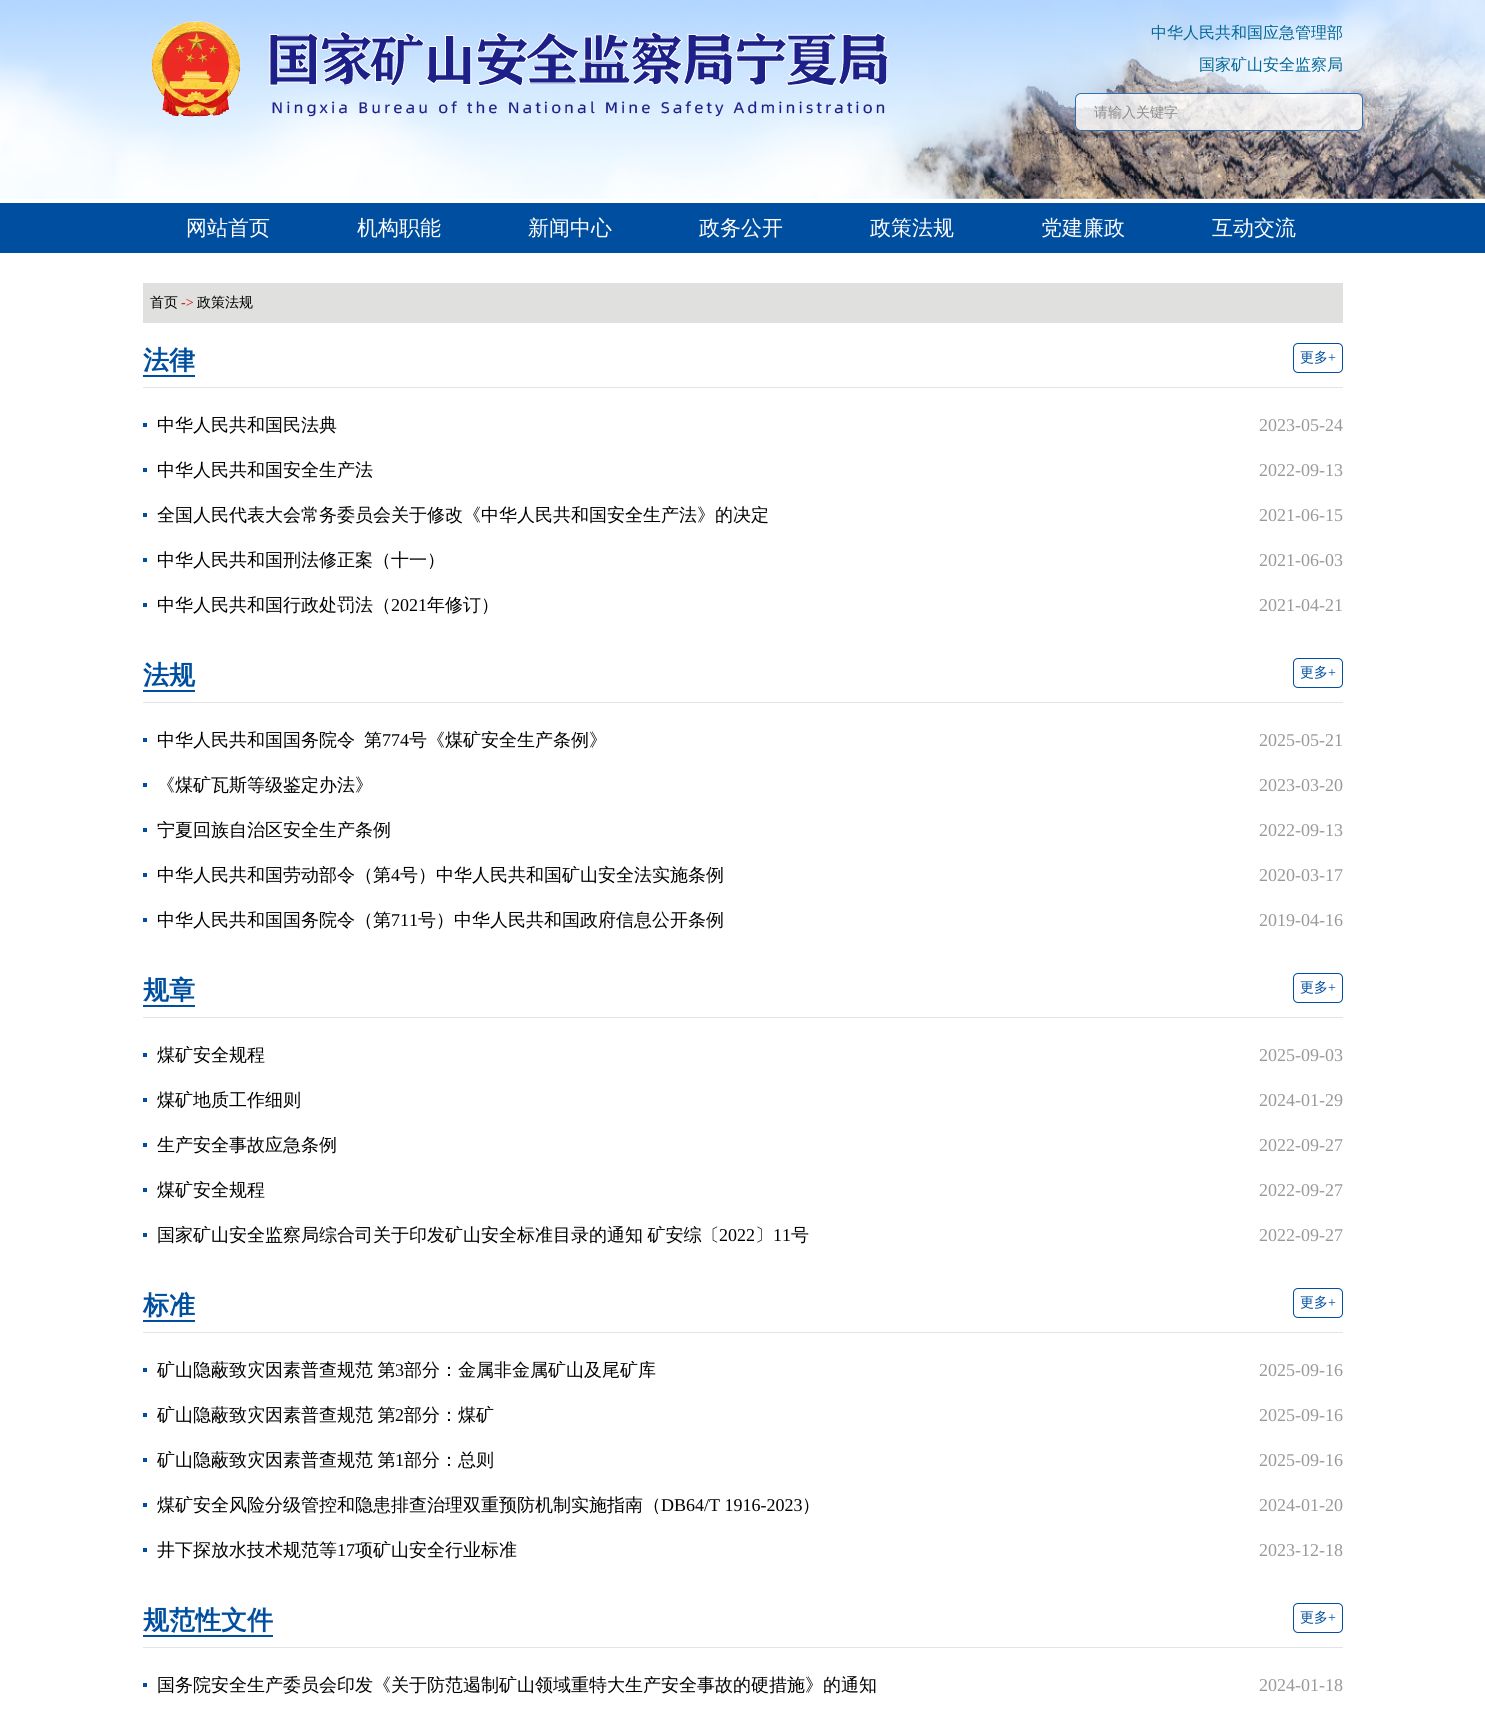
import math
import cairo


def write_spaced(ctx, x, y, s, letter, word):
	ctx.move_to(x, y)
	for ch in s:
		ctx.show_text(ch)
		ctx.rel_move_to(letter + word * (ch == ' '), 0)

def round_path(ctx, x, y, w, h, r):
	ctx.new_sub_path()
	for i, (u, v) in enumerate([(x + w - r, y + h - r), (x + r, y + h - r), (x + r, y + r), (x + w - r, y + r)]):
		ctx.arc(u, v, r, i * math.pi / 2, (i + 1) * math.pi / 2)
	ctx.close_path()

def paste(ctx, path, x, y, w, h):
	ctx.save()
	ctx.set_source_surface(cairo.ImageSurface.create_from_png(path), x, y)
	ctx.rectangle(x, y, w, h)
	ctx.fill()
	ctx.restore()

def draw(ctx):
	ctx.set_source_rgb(1, 1, 1)
	ctx.paint()
	paste(ctx, 'media/1.png', 0, 0, 1485, 199)
	paste(ctx, 'media/2.png', 151, 21, 738, 96)
	ctx.select_font_face('WenQuanYi Zen Hei Medium')
	ctx.set_font_size(16)
	ctx.set_source_rgb(0, 0.4, 0.588)
	ctx.move_to(1151, 38)
	ctx.show_text('中华人民共和国应急管理部')
	ctx.move_to(1199, 70)
	ctx.show_text('国家矿山安全监察局')
	ctx.set_source_rgba(1, 1, 1, 0.8)
	round_path(ctx, 1075, 93, 288, 38, 6)
	ctx.fill()
	round_path(ctx, 1075.5, 93.5, 287, 37, 5.5)
	ctx.set_source_rgba(0, 0.306, 0.624, 0.8)
	ctx.set_line_width(1)
	ctx.stroke()
	ctx.set_font_size(14)
	ctx.set_source_rgb(0.545, 0.545, 0.545)
	ctx.move_to(1094, 117)
	ctx.show_text('请输入关键字')
	ctx.set_source_rgb(0, 0.306, 0.624)
	ctx.rectangle(0, 203, 1485, 50)
	ctx.fill()
	ctx.set_font_size(21)
	ctx.set_source_rgb(1, 1, 1)
	for x, y, s in [
		(186, 235, '网站首页'),
		(357, 235, '机构职能'),
		(528, 235, '新闻中心'),
		(699, 235, '政务公开'),
		(870, 235, '政策法规'),
		(1041, 235, '党建廉政'),
		(1212, 235, '互动交流'),
	]:
		ctx.move_to(x, y)
		ctx.show_text(s)
	ctx.set_source_rgb(0.878, 0.878, 0.875)
	ctx.rectangle(143, 283, 1200, 40)
	ctx.fill()
	ctx.set_font_size(14)
	ctx.set_source_rgb(0, 0, 0)
	ctx.move_to(150, 307)
	ctx.show_text('首页')
	ctx.select_font_face('Liberation Serif')
	ctx.set_source_rgb(0.8, 0, 0)
	ctx.move_to(181, 307)
	ctx.show_text('->')
	ctx.select_font_face('WenQuanYi Zen Hei Medium')
	ctx.set_source_rgb(0, 0, 0)
	ctx.move_to(197, 307)
	ctx.show_text('政策法规')
	ctx.set_source_rgb(0.894, 0.894, 0.894)
	ctx.rectangle(143, 387, 1200, 1)
	ctx.fill()
	ctx.select_font_face('WenQuanYi Zen Hei', cairo.FONT_SLANT_NORMAL, cairo.FONT_WEIGHT_BOLD)
	ctx.set_font_size(26)
	ctx.set_source_rgb(0, 0.306, 0.624)
	ctx.move_to(143, 369)
	ctx.show_text('法律')
	ctx.rectangle(143, 375, 52, 2)
	ctx.fill()
	round_path(ctx, 1293.5, 343.5, 49, 29, 4.5)
	ctx.stroke()
	ctx.select_font_face('WenQuanYi Zen Hei Medium')
	ctx.set_font_size(14)
	ctx.move_to(1300, 362)
	ctx.show_text('更多')
	ctx.select_font_face('Liberation Serif')
	ctx.move_to(1328, 362)
	ctx.show_text('+')
	ctx.rectangle(143, 423, 4, 4)
	ctx.fill()
	ctx.select_font_face('WenQuanYi Zen Hei Medium')
	ctx.set_font_size(18)
	ctx.set_source_rgb(0, 0, 0)
	ctx.move_to(157, 431)
	ctx.show_text('中华人民共和国民法典')
	ctx.select_font_face('Liberation Serif')
	ctx.set_source_rgb(0.6, 0.6, 0.6)
	ctx.move_to(1259, 431)
	ctx.show_text('2023-05-24')
	ctx.set_source_rgb(0, 0.306, 0.624)
	ctx.rectangle(143, 468, 4, 4)
	ctx.fill()
	ctx.select_font_face('WenQuanYi Zen Hei Medium')
	ctx.set_source_rgb(0, 0, 0)
	ctx.move_to(157, 476)
	ctx.show_text('中华人民共和国安全生产法')
	ctx.select_font_face('Liberation Serif')
	ctx.set_source_rgb(0.6, 0.6, 0.6)
	ctx.move_to(1259, 476)
	ctx.show_text('2022-09-13')
	ctx.set_source_rgb(0, 0.306, 0.624)
	ctx.rectangle(143, 513, 4, 4)
	ctx.fill()
	ctx.select_font_face('WenQuanYi Zen Hei Medium')
	ctx.set_source_rgb(0, 0, 0)
	ctx.move_to(157, 521)
	ctx.show_text('全国人民代表大会常务委员会关于修改《中华人民共和国安全生产法》的决定')
	ctx.select_font_face('Liberation Serif')
	ctx.set_source_rgb(0.6, 0.6, 0.6)
	ctx.move_to(1259, 521)
	ctx.show_text('2021-06-15')
	ctx.set_source_rgb(0, 0.306, 0.624)
	ctx.rectangle(143, 558, 4, 4)
	ctx.fill()
	ctx.select_font_face('WenQuanYi Zen Hei Medium')
	ctx.set_source_rgb(0, 0, 0)
	ctx.move_to(157, 566)
	ctx.show_text('中华人民共和国刑法修正案（十一）')
	ctx.select_font_face('Liberation Serif')
	ctx.set_source_rgb(0.6, 0.6, 0.6)
	ctx.move_to(1259, 566)
	ctx.show_text('2021-06-03')
	ctx.set_source_rgb(0, 0.306, 0.624)
	ctx.rectangle(143, 603, 4, 4)
	ctx.fill()
	ctx.select_font_face('WenQuanYi Zen Hei Medium')
	ctx.set_source_rgb(0, 0, 0)
	ctx.move_to(157, 611)
	ctx.show_text('中华人民共和国行政处罚法（')
	ctx.select_font_face('Liberation Serif')
	ctx.move_to(391, 611)
	ctx.show_text('2021')
	ctx.select_font_face('WenQuanYi Zen Hei Medium')
	ctx.move_to(427, 611)
	ctx.show_text('年修订）')
	ctx.select_font_face('Liberation Serif')
	ctx.set_source_rgb(0.6, 0.6, 0.6)
	ctx.move_to(1259, 611)
	ctx.show_text('2021-04-21')
	ctx.set_source_rgb(0.894, 0.894, 0.894)
	ctx.rectangle(143, 702, 1200, 1)
	ctx.fill()
	ctx.select_font_face('WenQuanYi Zen Hei', cairo.FONT_SLANT_NORMAL, cairo.FONT_WEIGHT_BOLD)
	ctx.set_font_size(26)
	ctx.set_source_rgb(0, 0.306, 0.624)
	ctx.move_to(143, 684)
	ctx.show_text('法规')
	ctx.rectangle(143, 690, 52, 2)
	ctx.fill()
	round_path(ctx, 1293.5, 658.5, 49, 29, 4.5)
	ctx.stroke()
	ctx.select_font_face('WenQuanYi Zen Hei Medium')
	ctx.set_font_size(14)
	ctx.move_to(1300, 677)
	ctx.show_text('更多')
	ctx.select_font_face('Liberation Serif')
	ctx.move_to(1328, 677)
	ctx.show_text('+')
	ctx.rectangle(143, 738, 4, 4)
	ctx.fill()
	ctx.select_font_face('WenQuanYi Zen Hei Medium')
	ctx.set_font_size(18)
	ctx.set_source_rgb(0, 0, 0)
	ctx.move_to(157, 746)
	ctx.show_text('中华人民共和国国务院令')
	ctx.move_to(364, 746)
	ctx.show_text('第')
	ctx.select_font_face('Liberation Serif')
	ctx.move_to(382, 746)
	ctx.show_text('774')
	ctx.select_font_face('WenQuanYi Zen Hei Medium')
	ctx.move_to(409, 746)
	ctx.show_text('号《煤矿安全生产条例》')
	ctx.select_font_face('Liberation Serif')
	ctx.set_source_rgb(0.6, 0.6, 0.6)
	ctx.move_to(1259, 746)
	ctx.show_text('2025-05-21')
	ctx.set_source_rgb(0, 0.306, 0.624)
	ctx.rectangle(143, 783, 4, 4)
	ctx.fill()
	ctx.select_font_face('WenQuanYi Zen Hei Medium')
	ctx.set_source_rgb(0, 0, 0)
	ctx.move_to(157, 791)
	ctx.show_text('《煤矿瓦斯等级鉴定办法》')
	ctx.select_font_face('Liberation Serif')
	ctx.set_source_rgb(0.6, 0.6, 0.6)
	ctx.move_to(1259, 791)
	ctx.show_text('2023-03-20')
	ctx.set_source_rgb(0, 0.306, 0.624)
	ctx.rectangle(143, 828, 4, 4)
	ctx.fill()
	ctx.select_font_face('WenQuanYi Zen Hei Medium')
	ctx.set_source_rgb(0, 0, 0)
	ctx.move_to(157, 836)
	ctx.show_text('宁夏回族自治区安全生产条例')
	ctx.select_font_face('Liberation Serif')
	ctx.set_source_rgb(0.6, 0.6, 0.6)
	ctx.move_to(1259, 836)
	ctx.show_text('2022-09-13')
	ctx.set_source_rgb(0, 0.306, 0.624)
	ctx.rectangle(143, 873, 4, 4)
	ctx.fill()
	ctx.select_font_face('WenQuanYi Zen Hei Medium')
	ctx.set_source_rgb(0, 0, 0)
	ctx.move_to(157, 881)
	ctx.show_text('中华人民共和国劳动部令（第')
	ctx.select_font_face('Liberation Serif')
	ctx.move_to(391, 881)
	ctx.show_text('4')
	ctx.select_font_face('WenQuanYi Zen Hei Medium')
	ctx.move_to(400, 881)
	ctx.show_text('号）中华人民共和国矿山安全法实施条例')
	ctx.select_font_face('Liberation Serif')
	ctx.set_source_rgb(0.6, 0.6, 0.6)
	ctx.move_to(1259, 881)
	ctx.show_text('2020-03-17')
	ctx.set_source_rgb(0, 0.306, 0.624)
	ctx.rectangle(143, 918, 4, 4)
	ctx.fill()
	ctx.select_font_face('WenQuanYi Zen Hei Medium')
	ctx.set_source_rgb(0, 0, 0)
	ctx.move_to(157, 926)
	ctx.show_text('中华人民共和国国务院令（第')
	ctx.select_font_face('Liberation Serif')
	ctx.move_to(391, 926)
	ctx.show_text('711')
	ctx.select_font_face('WenQuanYi Zen Hei Medium')
	ctx.move_to(418, 926)
	ctx.show_text('号）中华人民共和国政府信息公开条例')
	ctx.select_font_face('Liberation Serif')
	ctx.set_source_rgb(0.6, 0.6, 0.6)
	ctx.move_to(1259, 926)
	ctx.show_text('2019-04-16')
	ctx.set_source_rgb(0.894, 0.894, 0.894)
	ctx.rectangle(143, 1017, 1200, 1)
	ctx.fill()
	ctx.select_font_face('WenQuanYi Zen Hei', cairo.FONT_SLANT_NORMAL, cairo.FONT_WEIGHT_BOLD)
	ctx.set_font_size(26)
	ctx.set_source_rgb(0, 0.306, 0.624)
	ctx.move_to(143, 999)
	ctx.show_text('规章')
	ctx.rectangle(143, 1005, 52, 2)
	ctx.fill()
	round_path(ctx, 1293.5, 973.5, 49, 29, 4.5)
	ctx.stroke()
	ctx.select_font_face('WenQuanYi Zen Hei Medium')
	ctx.set_font_size(14)
	ctx.move_to(1300, 992)
	ctx.show_text('更多')
	ctx.select_font_face('Liberation Serif')
	ctx.move_to(1328, 992)
	ctx.show_text('+')
	ctx.rectangle(143, 1053, 4, 4)
	ctx.fill()
	ctx.select_font_face('WenQuanYi Zen Hei Medium')
	ctx.set_font_size(18)
	ctx.set_source_rgb(0, 0, 0)
	ctx.move_to(157, 1061)
	ctx.show_text('煤矿安全规程')
	ctx.select_font_face('Liberation Serif')
	ctx.set_source_rgb(0.6, 0.6, 0.6)
	ctx.move_to(1259, 1061)
	ctx.show_text('2025-09-03')
	ctx.set_source_rgb(0, 0.306, 0.624)
	ctx.rectangle(143, 1098, 4, 4)
	ctx.fill()
	ctx.select_font_face('WenQuanYi Zen Hei Medium')
	ctx.set_source_rgb(0, 0, 0)
	ctx.move_to(157, 1106)
	ctx.show_text('煤矿地质工作细则')
	ctx.select_font_face('Liberation Serif')
	ctx.set_source_rgb(0.6, 0.6, 0.6)
	ctx.move_to(1259, 1106)
	ctx.show_text('2024-01-29')
	ctx.set_source_rgb(0, 0.306, 0.624)
	ctx.rectangle(143, 1143, 4, 4)
	ctx.fill()
	ctx.select_font_face('WenQuanYi Zen Hei Medium')
	ctx.set_source_rgb(0, 0, 0)
	ctx.move_to(157, 1151)
	ctx.show_text('生产安全事故应急条例')
	ctx.select_font_face('Liberation Serif')
	ctx.set_source_rgb(0.6, 0.6, 0.6)
	ctx.move_to(1259, 1151)
	ctx.show_text('2022-09-27')
	ctx.set_source_rgb(0, 0.306, 0.624)
	ctx.rectangle(143, 1188, 4, 4)
	ctx.fill()
	ctx.select_font_face('WenQuanYi Zen Hei Medium')
	ctx.set_source_rgb(0, 0, 0)
	ctx.move_to(157, 1196)
	ctx.show_text('煤矿安全规程')
	ctx.select_font_face('Liberation Serif')
	ctx.set_source_rgb(0.6, 0.6, 0.6)
	ctx.move_to(1259, 1196)
	ctx.show_text('2022-09-27')
	ctx.set_source_rgb(0, 0.306, 0.624)
	ctx.rectangle(143, 1233, 4, 4)
	ctx.fill()
	ctx.select_font_face('WenQuanYi Zen Hei Medium')
	ctx.set_source_rgb(0, 0, 0)
	write_spaced(ctx, 157, 1241, '国家矿山安全监察局综合司关于印发矿山安全标准目录的通知 矿安综〔', 0, -1)
	ctx.select_font_face('Liberation Serif')
	ctx.move_to(719, 1241)
	ctx.show_text('2022')
	ctx.select_font_face('WenQuanYi Zen Hei Medium')
	ctx.move_to(755, 1241)
	ctx.show_text('〕')
	ctx.select_font_face('Liberation Serif')
	ctx.move_to(773, 1241)
	ctx.show_text('11')
	ctx.select_font_face('WenQuanYi Zen Hei Medium')
	ctx.move_to(791, 1241)
	ctx.show_text('号')
	ctx.select_font_face('Liberation Serif')
	ctx.set_source_rgb(0.6, 0.6, 0.6)
	ctx.move_to(1259, 1241)
	ctx.show_text('2022-09-27')
	ctx.set_source_rgb(0.894, 0.894, 0.894)
	ctx.rectangle(143, 1332, 1200, 1)
	ctx.fill()
	ctx.select_font_face('WenQuanYi Zen Hei', cairo.FONT_SLANT_NORMAL, cairo.FONT_WEIGHT_BOLD)
	ctx.set_font_size(26)
	ctx.set_source_rgb(0, 0.306, 0.624)
	ctx.move_to(143, 1314)
	ctx.show_text('标准')
	ctx.rectangle(143, 1320, 52, 2)
	ctx.fill()
	round_path(ctx, 1293.5, 1288.5, 49, 29, 4.5)
	ctx.stroke()
	ctx.select_font_face('WenQuanYi Zen Hei Medium')
	ctx.set_font_size(14)
	ctx.move_to(1300, 1307)
	ctx.show_text('更多')
	ctx.select_font_face('Liberation Serif')
	ctx.move_to(1328, 1307)
	ctx.show_text('+')
	ctx.rectangle(143, 1368, 4, 4)
	ctx.fill()
	ctx.select_font_face('WenQuanYi Zen Hei Medium')
	ctx.set_font_size(18)
	ctx.set_source_rgb(0, 0, 0)
	write_spaced(ctx, 157, 1376, '矿山隐蔽致灾因素普查规范 第', 0, -1)
	ctx.select_font_face('Liberation Serif')
	ctx.move_to(395, 1376)
	ctx.show_text('3')
	ctx.select_font_face('WenQuanYi Zen Hei Medium')
	ctx.move_to(404, 1376)
	ctx.show_text('部分：金属非金属矿山及尾矿库')
	ctx.select_font_face('Liberation Serif')
	ctx.set_source_rgb(0.6, 0.6, 0.6)
	ctx.move_to(1259, 1376)
	ctx.show_text('2025-09-16')
	ctx.set_source_rgb(0, 0.306, 0.624)
	ctx.rectangle(143, 1413, 4, 4)
	ctx.fill()
	ctx.select_font_face('WenQuanYi Zen Hei Medium')
	ctx.set_source_rgb(0, 0, 0)
	write_spaced(ctx, 157, 1421, '矿山隐蔽致灾因素普查规范 第', 0, -1)
	ctx.select_font_face('Liberation Serif')
	ctx.move_to(395, 1421)
	ctx.show_text('2')
	ctx.select_font_face('WenQuanYi Zen Hei Medium')
	ctx.move_to(404, 1421)
	ctx.show_text('部分：煤矿')
	ctx.select_font_face('Liberation Serif')
	ctx.set_source_rgb(0.6, 0.6, 0.6)
	ctx.move_to(1259, 1421)
	ctx.show_text('2025-09-16')
	ctx.set_source_rgb(0, 0.306, 0.624)
	ctx.rectangle(143, 1458, 4, 4)
	ctx.fill()
	ctx.select_font_face('WenQuanYi Zen Hei Medium')
	ctx.set_source_rgb(0, 0, 0)
	write_spaced(ctx, 157, 1466, '矿山隐蔽致灾因素普查规范 第', 0, -1)
	ctx.select_font_face('Liberation Serif')
	ctx.move_to(395, 1466)
	ctx.show_text('1')
	ctx.select_font_face('WenQuanYi Zen Hei Medium')
	ctx.move_to(404, 1466)
	ctx.show_text('部分：总则')
	ctx.select_font_face('Liberation Serif')
	ctx.set_source_rgb(0.6, 0.6, 0.6)
	ctx.move_to(1259, 1466)
	ctx.show_text('2025-09-16')
	ctx.set_source_rgb(0, 0.306, 0.624)
	ctx.rectangle(143, 1503, 4, 4)
	ctx.fill()
	ctx.select_font_face('WenQuanYi Zen Hei Medium')
	ctx.set_source_rgb(0, 0, 0)
	ctx.move_to(157, 1511)
	ctx.show_text('煤矿安全风险分级管控和隐患排查治理双重预防机制实施指南（')
	ctx.select_font_face('Liberation Serif')
	ctx.move_to(661, 1511)
	ctx.show_text('DB64/T 1916-2023')
	ctx.select_font_face('WenQuanYi Zen Hei Medium')
	ctx.move_to(802, 1511)
	ctx.show_text('）')
	ctx.select_font_face('Liberation Serif')
	ctx.set_source_rgb(0.6, 0.6, 0.6)
	ctx.move_to(1259, 1511)
	ctx.show_text('2024-01-20')
	ctx.set_source_rgb(0, 0.306, 0.624)
	ctx.rectangle(143, 1548, 4, 4)
	ctx.fill()
	ctx.select_font_face('WenQuanYi Zen Hei Medium')
	ctx.set_source_rgb(0, 0, 0)
	ctx.move_to(157, 1556)
	ctx.show_text('井下探放水技术规范等')
	ctx.select_font_face('Liberation Serif')
	ctx.move_to(337, 1556)
	ctx.show_text('17')
	ctx.select_font_face('WenQuanYi Zen Hei Medium')
	ctx.move_to(355, 1556)
	ctx.show_text('项矿山安全行业标准')
	ctx.select_font_face('Liberation Serif')
	ctx.set_source_rgb(0.6, 0.6, 0.6)
	ctx.move_to(1259, 1556)
	ctx.show_text('2023-12-18')
	ctx.set_source_rgb(0.894, 0.894, 0.894)
	ctx.rectangle(143, 1647, 1200, 1)
	ctx.fill()
	ctx.select_font_face('WenQuanYi Zen Hei', cairo.FONT_SLANT_NORMAL, cairo.FONT_WEIGHT_BOLD)
	ctx.set_font_size(26)
	ctx.set_source_rgb(0, 0.306, 0.624)
	ctx.move_to(143, 1629)
	ctx.show_text('规范性文件')
	ctx.rectangle(143, 1635, 130, 2)
	ctx.fill()
	round_path(ctx, 1293.5, 1603.5, 49, 29, 4.5)
	ctx.stroke()
	ctx.select_font_face('WenQuanYi Zen Hei Medium')
	ctx.set_font_size(14)
	ctx.move_to(1300, 1622)
	ctx.show_text('更多')
	ctx.select_font_face('Liberation Serif')
	ctx.move_to(1328, 1622)
	ctx.show_text('+')
	ctx.rectangle(143, 1683, 4, 4)
	ctx.fill()
	ctx.select_font_face('WenQuanYi Zen Hei Medium')
	ctx.set_font_size(18)
	ctx.set_source_rgb(0, 0, 0)
	ctx.move_to(157, 1691)
	ctx.show_text('国务院安全生产委员会印发《关于防范遏制矿山领域重特大生产安全事故的硬措施》的通知')
	ctx.select_font_face('Liberation Serif')
	ctx.set_source_rgb(0.6, 0.6, 0.6)
	ctx.move_to(1259, 1691)
	ctx.show_text('2024-01-18')


surface = cairo.ImageSurface(cairo.FORMAT_RGB24, 1485, 1711)
ctx = cairo.Context(surface)
options = cairo.FontOptions()
options.set_hint_metrics(cairo.HINT_METRICS_OFF)
options.set_hint_style(cairo.HINT_STYLE_NONE)
ctx.set_font_options(options)
ctx.set_miter_limit(4)
draw(ctx)
surface.write_to_png('image.png')
